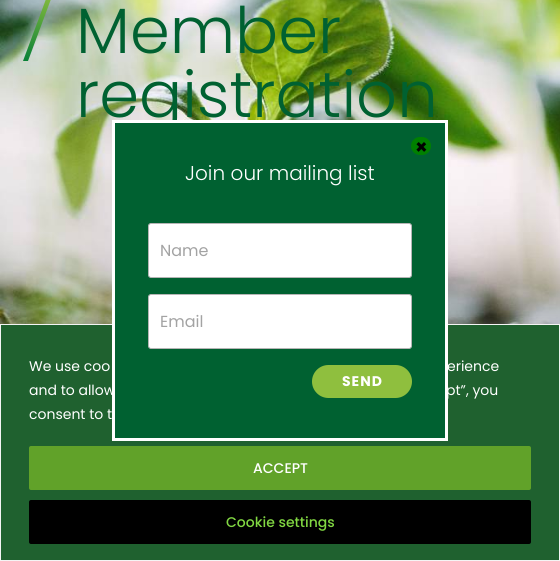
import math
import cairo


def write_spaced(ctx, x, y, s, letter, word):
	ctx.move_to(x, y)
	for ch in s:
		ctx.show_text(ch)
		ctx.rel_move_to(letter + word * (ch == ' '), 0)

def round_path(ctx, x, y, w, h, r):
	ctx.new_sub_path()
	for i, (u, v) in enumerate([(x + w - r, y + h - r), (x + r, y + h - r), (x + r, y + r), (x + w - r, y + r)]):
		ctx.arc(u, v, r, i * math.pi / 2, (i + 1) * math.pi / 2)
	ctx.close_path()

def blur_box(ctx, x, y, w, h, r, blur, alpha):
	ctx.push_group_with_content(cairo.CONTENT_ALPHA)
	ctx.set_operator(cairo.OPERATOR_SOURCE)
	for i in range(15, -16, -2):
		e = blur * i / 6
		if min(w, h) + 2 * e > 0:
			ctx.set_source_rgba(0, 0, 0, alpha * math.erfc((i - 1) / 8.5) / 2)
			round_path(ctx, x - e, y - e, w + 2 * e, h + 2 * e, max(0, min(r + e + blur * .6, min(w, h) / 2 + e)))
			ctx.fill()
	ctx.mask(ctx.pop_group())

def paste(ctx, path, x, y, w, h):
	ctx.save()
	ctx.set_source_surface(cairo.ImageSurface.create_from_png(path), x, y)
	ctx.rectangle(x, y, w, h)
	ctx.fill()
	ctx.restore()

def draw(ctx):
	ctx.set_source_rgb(1, 1, 1)
	ctx.paint()
	paste(ctx, 'media/1.png', 0, 0, 560, 324)
	gradient = cairo.LinearGradient(51, -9, 26, 61)
	gradient.add_color_stop_rgba(0, 0.561, 0.749, 0.243, 1)
	gradient.add_color_stop_rgba(1, 0.027, 0.502, 0.216, 1)
	ctx.set_source(gradient)
	ctx.new_path()
	ctx.move_to(49, -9)
	ctx.line_to(54, -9)
	ctx.line_to(28, 61)
	ctx.line_to(23, 61)
	ctx.close_path()
	ctx.fill()
	ctx.select_font_face('Poppins Light')
	ctx.set_font_size(64)
	ctx.set_source_rgb(0, 0.38, 0.192)
	ctx.move_to(76, 53)
	ctx.show_text('Member')
	ctx.move_to(76, 117)
	ctx.show_text('registration')
	ctx.set_source_rgb(0.675, 0.671, 0.671)
	blur_box(ctx, 0, 323, 560, 237, 0, 5, 0.3)
	ctx.set_source_rgb(0.122, 0.38, 0.184)
	ctx.rectangle(0.5, 324.5, 559, 236)
	ctx.fill_preserve()
	ctx.set_source_rgb(0.957, 0.957, 0.957)
	ctx.set_line_width(1)
	ctx.stroke()
	ctx.select_font_face('Poppins')
	ctx.set_font_size(14)
	ctx.set_source_rgb(1, 1, 1)
	for x, y, s in [
		(447, 371, 'erience'),
		(29, 395, 'and to allow'),
		(446, 395, 'pt”, you'),
	]:
		ctx.move_to(x, y)
		ctx.show_text(s)
	ctx.set_source_rgb(0, 0.38, 0.192)
	ctx.rectangle(113.5, 121.5, 333, 318)
	ctx.fill_preserve()
	ctx.set_source_rgb(1, 1, 1)
	ctx.set_line_width(3)
	ctx.stroke()
	ctx.set_source_rgb(0, 0.502, 0)
	round_path(ctx, 411, 137, 20, 18, 9)
	ctx.fill()
	ctx.select_font_face('Poppins', cairo.FONT_SLANT_NORMAL, cairo.FONT_WEIGHT_BOLD)
	ctx.set_font_size(20)
	ctx.set_source_rgb(0, 0, 0)
	ctx.move_to(415, 154)
	ctx.show_text('×')
	ctx.select_font_face('Poppins Light')
	ctx.set_source_rgb(1, 1, 1)
	ctx.move_to(185, 180)
	ctx.show_text('Join our mailing list')
	round_path(ctx, 148.5, 223.5, 263, 54, 2.5)
	ctx.fill_preserve()
	ctx.set_source_rgb(0.71, 0.71, 0.71)
	ctx.set_line_width(1)
	ctx.stroke()
	ctx.select_font_face('Poppins')
	ctx.set_font_size(16)
	ctx.set_source_rgb(0.639, 0.639, 0.639)
	ctx.move_to(160, 256)
	ctx.show_text('Name')
	ctx.set_source_rgb(1, 1, 1)
	round_path(ctx, 148.5, 294.5, 263, 54, 2.5)
	ctx.fill_preserve()
	ctx.set_source_rgb(0.71, 0.71, 0.71)
	ctx.stroke()
	ctx.set_source_rgb(0.639, 0.639, 0.639)
	ctx.move_to(160, 327)
	ctx.show_text('Email')
	ctx.set_source_rgb(0.561, 0.749, 0.243)
	round_path(ctx, 312, 365, 100, 33, 16.5)
	ctx.fill()
	ctx.select_font_face('Poppins', cairo.FONT_SLANT_NORMAL, cairo.FONT_WEIGHT_BOLD)
	ctx.set_font_size(14)
	ctx.set_source_rgb(1, 1, 1)
	write_spaced(ctx, 342, 386, 'SEND', 1, 0)
	ctx.select_font_face('Poppins')
	ctx.move_to(29, 371)
	ctx.show_text('We use coo')
	ctx.move_to(29, 419)
	ctx.show_text('consent to t')
	ctx.set_source_rgb(0.38, 0.635, 0.161)
	round_path(ctx, 30, 447, 500, 42, 1)
	ctx.fill_preserve()
	ctx.set_line_width(2)
	ctx.stroke()
	ctx.select_font_face('Poppins Medium')
	ctx.set_source_rgb(1, 1, 1)
	ctx.move_to(253, 473)
	ctx.show_text('ACCEPT')
	ctx.set_source_rgb(0, 0, 0)
	round_path(ctx, 30, 501, 500, 42, 1)
	ctx.fill_preserve()
	ctx.stroke()
	ctx.set_source_rgb(0.506, 0.843, 0.259)
	ctx.move_to(226, 527)
	ctx.show_text('Cookie settings')


surface = cairo.ImageSurface(cairo.FORMAT_RGB24, 560, 561)
ctx = cairo.Context(surface)
options = cairo.FontOptions()
options.set_hint_metrics(cairo.HINT_METRICS_OFF)
options.set_hint_style(cairo.HINT_STYLE_NONE)
ctx.set_font_options(options)
ctx.set_miter_limit(4)
draw(ctx)
surface.write_to_png('image.png')
